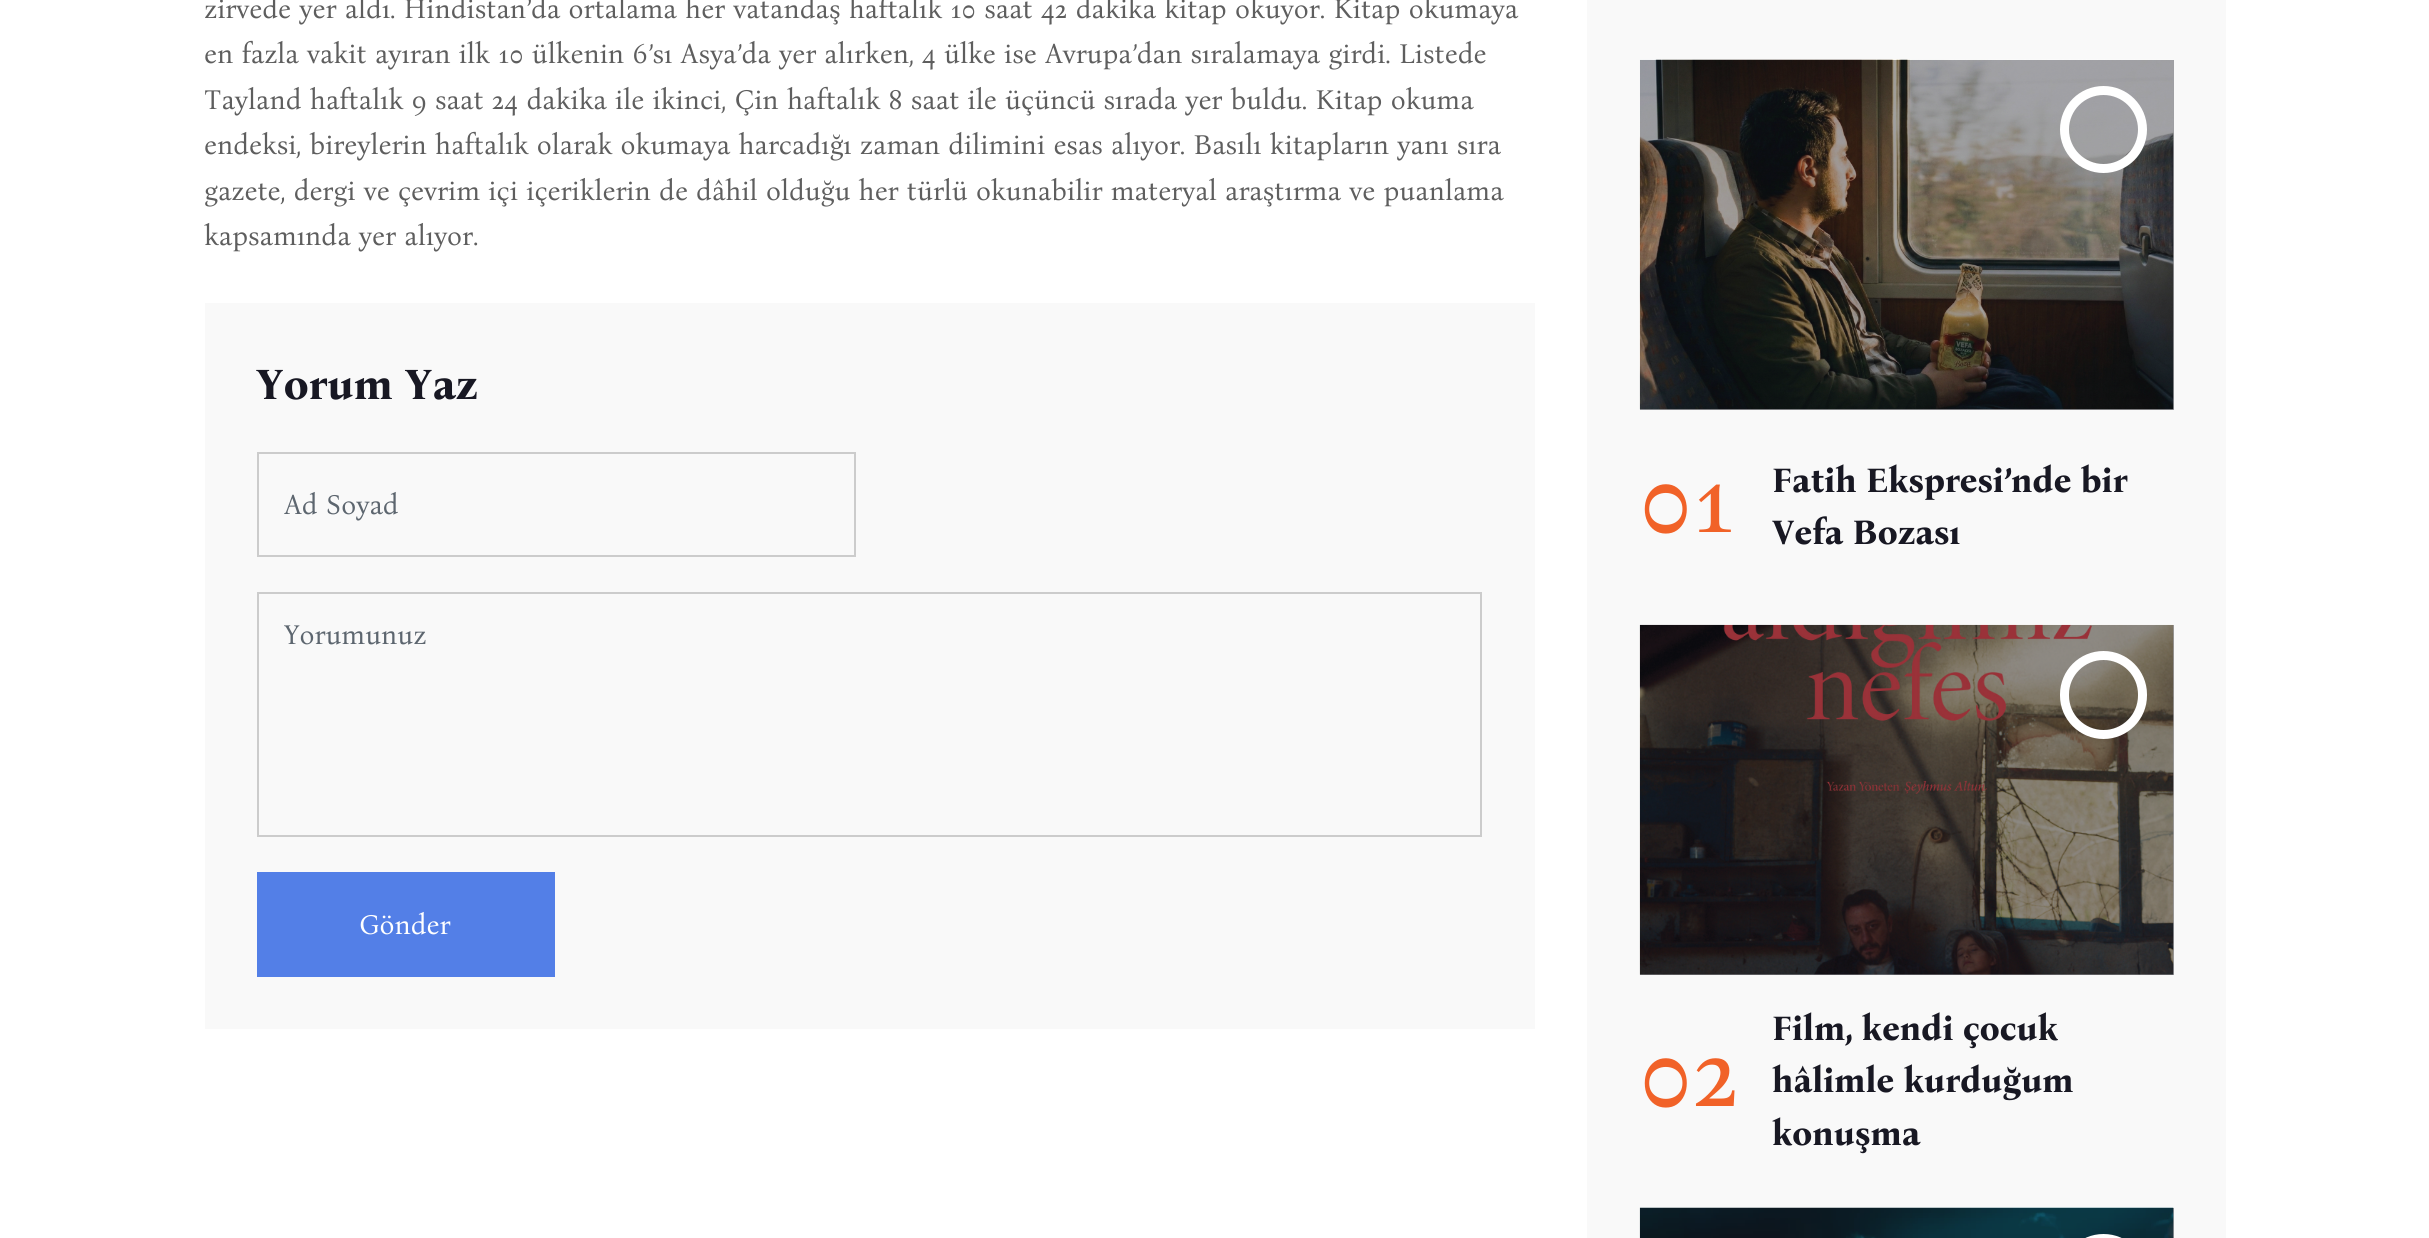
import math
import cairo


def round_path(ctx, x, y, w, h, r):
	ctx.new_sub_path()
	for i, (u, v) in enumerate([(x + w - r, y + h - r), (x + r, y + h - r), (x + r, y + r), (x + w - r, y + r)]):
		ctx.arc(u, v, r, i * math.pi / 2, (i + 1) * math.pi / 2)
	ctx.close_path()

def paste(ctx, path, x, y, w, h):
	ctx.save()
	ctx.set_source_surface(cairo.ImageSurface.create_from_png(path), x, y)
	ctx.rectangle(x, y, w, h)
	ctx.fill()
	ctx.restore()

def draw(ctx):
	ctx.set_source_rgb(1, 1, 1)
	ctx.paint()
	ctx.select_font_face('Bona Nova')
	ctx.set_font_size(28)
	ctx.set_source_rgb(0.369, 0.369, 0.369)
	for x, y, s in [
		(204, 18, 'zirvede yer aldı. Hindistan’da ortalama her vatandaş haftalık 10 saat 42 dakika kitap okuyor. Kitap okumaya'),
		(204, 63, 'en fazla vakit ayıran ilk 10 ülkenin 6’sı Asya’da yer alırken, 4 ülke ise Avrupa’dan sıralamaya girdi. Listede'),
		(204, 109, 'Tayland haftalık 9 saat 24 dakika ile ikinci, Çin haftalık 8 saat ile üçüncü sırada yer buldu. Kitap okuma'),
		(204, 154, 'endeksi, bireylerin haftalık olarak okumaya harcadığı zaman dilimini esas alıyor. Basılı kitapların yanı sıra'),
		(204, 200, 'gazete, dergi ve çevrim içi içeriklerin de dâhil olduğu her türlü okunabilir materyal araştırma ve puanlama'),
		(204, 245, 'kapsamında yer alıyor.'),
	]:
		ctx.move_to(x, y)
		ctx.show_text(s)
	ctx.set_source_rgb(0.976, 0.976, 0.976)
	ctx.rectangle(205, 303, 1330, 726)
	ctx.fill()
	ctx.select_font_face('Bona Nova', cairo.FONT_SLANT_NORMAL, cairo.FONT_WEIGHT_BOLD)
	ctx.set_font_size(43.75)
	ctx.set_source_rgb(0.094, 0.094, 0.137)
	ctx.move_to(256, 399)
	ctx.show_text('Yorum Yaz')
	ctx.rectangle(258, 453, 597, 103)
	ctx.set_source_rgb(0.8, 0.8, 0.8)
	ctx.stroke()
	ctx.select_font_face('Bona Nova')
	ctx.set_font_size(28)
	ctx.set_source_rgb(0.365, 0.4, 0.435)
	ctx.move_to(284, 514)
	ctx.show_text('Ad Soyad')
	ctx.rectangle(258, 593, 1223, 243)
	ctx.set_source_rgb(0.8, 0.8, 0.8)
	ctx.stroke()
	ctx.set_source_rgb(0.365, 0.4, 0.435)
	ctx.move_to(284, 644)
	ctx.show_text('Yorumunuz')
	ctx.set_source_rgb(0.325, 0.498, 0.906)
	ctx.rectangle(257, 872, 298, 105)
	ctx.fill()
	ctx.set_source_rgb(1, 1, 1)
	ctx.move_to(359, 934)
	ctx.show_text('Gönder')
	ctx.set_source_rgb(0.976, 0.976, 0.976)
	ctx.rectangle(1587, 0, 639, 1238)
	ctx.fill()
	ctx.set_source_rgb(0.624, 0.624, 0.639)
	ctx.rectangle(2173, 1208, 1, 30)
	ctx.rectangle(1640, 625, 534, 350)
	ctx.rectangle(1640, 60, 534, 350)
	ctx.fill()
	paste(ctx, 'media/1.png', 1639, 59, 535, 351)
	ctx.arc(2103.5, 129.5, 39, 0, 2 * math.pi)
	ctx.set_source_rgb(1, 1, 1)
	ctx.set_line_width(9)
	ctx.stroke()
	ctx.set_font_size(105)
	ctx.set_source_rgb(0.945, 0.384, 0.157)
	ctx.move_to(1639, 532)
	ctx.show_text('01')
	ctx.select_font_face('Bona Nova', cairo.FONT_SLANT_NORMAL, cairo.FONT_WEIGHT_BOLD)
	ctx.set_font_size(35)
	ctx.set_source_rgb(0.094, 0.094, 0.137)
	ctx.move_to(1772, 492)
	ctx.show_text('Fatih Ekspresi’nde bir')
	ctx.move_to(1772, 544)
	ctx.show_text('Vefa Bozası')
	paste(ctx, 'media/2.png', 1639, 624, 535, 351)
	round_path(ctx, 2064.5, 655.5, 78, 79, 39)
	ctx.set_source_rgb(1, 1, 1)
	ctx.stroke()
	ctx.select_font_face('Bona Nova')
	ctx.set_font_size(105)
	ctx.set_source_rgb(0.945, 0.384, 0.157)
	ctx.move_to(1639, 1106)
	ctx.show_text('02')
	ctx.select_font_face('Bona Nova', cairo.FONT_SLANT_NORMAL, cairo.FONT_WEIGHT_BOLD)
	ctx.set_font_size(35)
	ctx.set_source_rgb(0.094, 0.094, 0.137)
	for x, y, s in [
		(1772, 1040, 'Film, kendi çocuk'),
		(1772, 1092, 'hâlimle kurduğum'),
		(1772, 1145, 'konuşma'),
	]:
		ctx.move_to(x, y)
		ctx.show_text(s)
	paste(ctx, 'media/3.png', 1639, 1207, 535, 31)
	round_path(ctx, 2064.5, 1238.5, 78, 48, 39)
	ctx.set_source_rgb(1, 1, 1)
	ctx.stroke()


surface = cairo.ImageSurface(cairo.FORMAT_RGB24, 2429, 1238)
ctx = cairo.Context(surface)
options = cairo.FontOptions()
options.set_hint_metrics(cairo.HINT_METRICS_OFF)
options.set_hint_style(cairo.HINT_STYLE_NONE)
ctx.set_font_options(options)
ctx.set_miter_limit(4)
draw(ctx)
surface.write_to_png('image.png')
